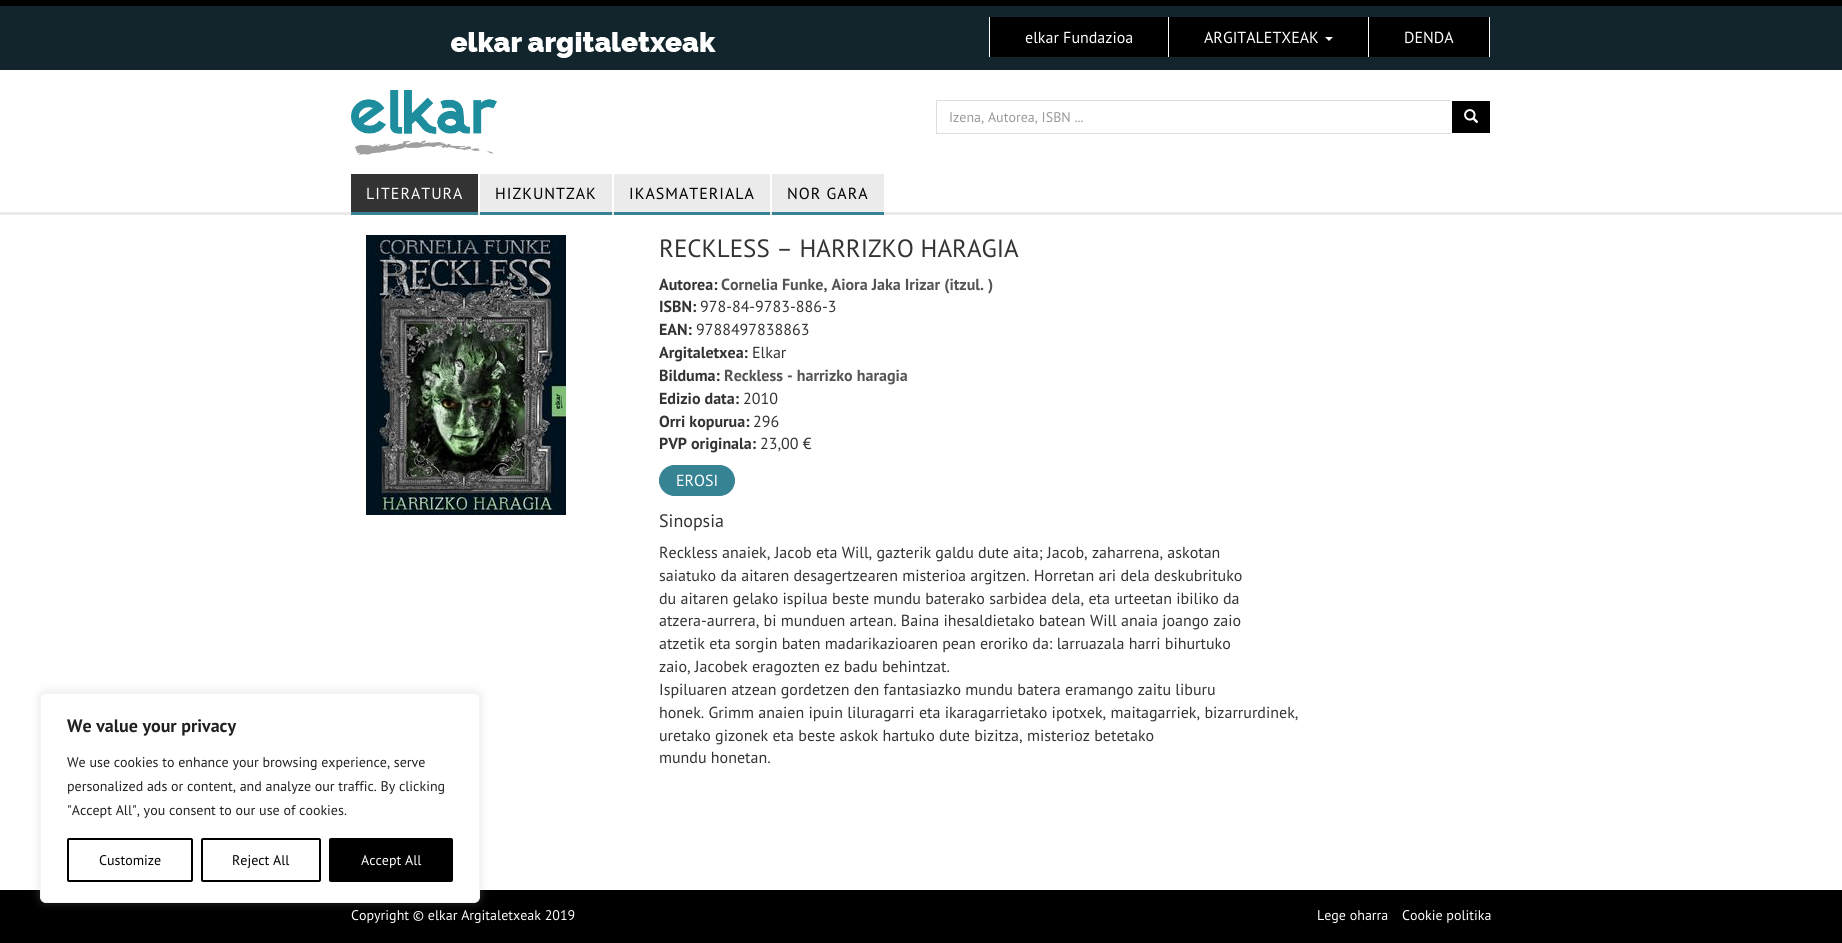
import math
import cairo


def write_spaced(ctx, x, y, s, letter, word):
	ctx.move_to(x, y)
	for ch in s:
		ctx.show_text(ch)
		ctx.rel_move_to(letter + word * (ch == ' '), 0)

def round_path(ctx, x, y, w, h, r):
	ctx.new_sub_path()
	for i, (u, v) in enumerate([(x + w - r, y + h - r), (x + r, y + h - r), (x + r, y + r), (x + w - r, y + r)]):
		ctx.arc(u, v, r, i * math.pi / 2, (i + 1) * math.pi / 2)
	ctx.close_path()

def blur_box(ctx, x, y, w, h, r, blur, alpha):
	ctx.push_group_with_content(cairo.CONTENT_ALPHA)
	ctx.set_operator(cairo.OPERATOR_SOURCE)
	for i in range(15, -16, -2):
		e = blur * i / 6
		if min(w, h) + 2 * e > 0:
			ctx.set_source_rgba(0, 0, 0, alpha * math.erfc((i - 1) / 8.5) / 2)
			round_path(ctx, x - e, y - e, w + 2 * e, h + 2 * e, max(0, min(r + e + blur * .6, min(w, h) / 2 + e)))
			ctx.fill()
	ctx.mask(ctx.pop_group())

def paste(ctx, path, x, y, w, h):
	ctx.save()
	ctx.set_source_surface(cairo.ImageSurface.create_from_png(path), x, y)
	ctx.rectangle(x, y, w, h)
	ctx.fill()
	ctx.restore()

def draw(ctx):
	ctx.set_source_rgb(1, 1, 1)
	ctx.paint()
	ctx.set_source_rgb(0.078, 0.145, 0.173)
	ctx.rectangle(0, 6, 1842, 64)
	ctx.fill()
	ctx.set_source_rgb(0, 0, 0)
	ctx.rectangle(0, 0, 1842, 6)
	ctx.fill()
	paste(ctx, 'media/1.png', 451, 32, 265, 26)
	ctx.set_source_rgb(1, 1, 1)
	ctx.rectangle(1168, 17, 1, 40)
	ctx.rectangle(989, 17, 1, 40)
	ctx.fill()
	ctx.set_source_rgb(0, 0, 0)
	ctx.rectangle(990, 17, 178, 40)
	ctx.fill()
	ctx.select_font_face('PT Sans')
	ctx.set_font_size(16)
	ctx.set_source_rgb(1, 1, 1)
	ctx.move_to(1025, 43)
	ctx.show_text('elkar Fundazioa')
	ctx.rectangle(1368, 17, 1, 40)
	ctx.fill()
	ctx.set_source_rgb(0, 0, 0)
	ctx.rectangle(1169, 17, 199, 40)
	ctx.fill()
	ctx.set_source_rgb(1, 1, 1)
	ctx.move_to(1204, 43)
	ctx.show_text('ARGITALETXEAK')
	ctx.new_path()
	ctx.move_to(1325, 37)
	ctx.line_to(1333, 37)
	ctx.line_to(1329, 41)
	ctx.close_path()
	ctx.fill()
	ctx.rectangle(1489, 17, 1, 40)
	ctx.fill()
	ctx.set_source_rgb(0, 0, 0)
	ctx.rectangle(1369, 17, 120, 40)
	ctx.fill()
	ctx.set_source_rgb(1, 1, 1)
	ctx.move_to(1404, 43)
	ctx.show_text('DENDA')
	paste(ctx, 'media/2.png', 351, 90, 146, 65)
	ctx.rectangle(936.5, 100.5, 515, 33)
	ctx.set_source_rgb(0.867, 0.867, 0.867)
	ctx.set_line_width(1)
	ctx.stroke()
	ctx.set_font_size(14)
	ctx.set_source_rgb(0.6, 0.6, 0.6)
	ctx.move_to(949, 122)
	ctx.show_text('Izena, Autorea, ISBN ...')
	ctx.set_source_rgb(0, 0, 0)
	ctx.rectangle(1451.5, 100.5, 39, 33)
	ctx.fill_preserve()
	ctx.set_source_rgb(1, 1, 1)
	ctx.stroke()
	paste(ctx, 'media/3.png', 1464, 109, 15, 14)
	ctx.set_source_rgb(0.918, 0.914, 0.914)
	ctx.rectangle(0, 212, 1842, 3)
	ctx.fill()
	ctx.set_source_rgb(0.212, 0.514, 0.576)
	ctx.rectangle(351, 212, 127, 3)
	ctx.fill()
	ctx.set_source_rgb(0.2, 0.2, 0.2)
	ctx.rectangle(351, 174, 127, 38)
	ctx.fill()
	ctx.set_font_size(16)
	ctx.set_source_rgb(1, 1, 1)
	write_spaced(ctx, 366, 199, 'LITERATURA', 1, 0)
	ctx.set_source_rgb(0.212, 0.514, 0.576)
	ctx.rectangle(480, 212, 132, 3)
	ctx.fill()
	ctx.set_source_rgb(0.918, 0.918, 0.918)
	ctx.rectangle(480, 174, 132, 38)
	ctx.fill()
	ctx.set_source_rgb(0, 0, 0)
	write_spaced(ctx, 495, 199, 'HIZKUNTZAK', 1, 0)
	ctx.set_source_rgb(0.212, 0.514, 0.576)
	ctx.rectangle(614, 212, 156, 3)
	ctx.fill()
	ctx.set_source_rgb(0.918, 0.918, 0.918)
	ctx.rectangle(614, 174, 156, 38)
	ctx.fill()
	ctx.set_source_rgb(0, 0, 0)
	write_spaced(ctx, 629, 199, 'IKASMATERIALA', 1, 0)
	ctx.set_source_rgb(0.212, 0.514, 0.576)
	ctx.rectangle(772, 212, 112, 3)
	ctx.fill()
	ctx.set_source_rgb(0.918, 0.918, 0.918)
	ctx.rectangle(772, 174, 112, 38)
	ctx.fill()
	ctx.set_source_rgb(0, 0, 0)
	write_spaced(ctx, 787, 199, 'NOR GARA', 1, 0)
	paste(ctx, 'media/4.png', 366, 235, 200, 280)
	ctx.set_font_size(25)
	ctx.set_source_rgb(0.2, 0.2, 0.2)
	ctx.move_to(659, 257)
	ctx.show_text('RECKLESS – HARRIZKO HARAGIA')
	ctx.select_font_face('PT Sans', cairo.FONT_SLANT_NORMAL, cairo.FONT_WEIGHT_BOLD)
	ctx.set_font_size(16)
	ctx.move_to(659, 290)
	ctx.show_text('Autorea:')
	ctx.set_source_rgb(0.329, 0.329, 0.329)
	ctx.move_to(721, 290)
	ctx.show_text('Cornelia Funke, Aiora Jaka Irizar (itzul. )')
	ctx.set_source_rgb(0.2, 0.2, 0.2)
	ctx.move_to(659, 312)
	ctx.show_text('ISBN:')
	ctx.select_font_face('PT Sans')
	ctx.move_to(700, 312)
	ctx.show_text('978-84-9783-886-3')
	ctx.select_font_face('PT Sans', cairo.FONT_SLANT_NORMAL, cairo.FONT_WEIGHT_BOLD)
	ctx.move_to(659, 335)
	ctx.show_text('EAN:')
	ctx.select_font_face('PT Sans')
	ctx.move_to(696, 335)
	ctx.show_text('9788497838863')
	ctx.select_font_face('PT Sans', cairo.FONT_SLANT_NORMAL, cairo.FONT_WEIGHT_BOLD)
	ctx.move_to(659, 358)
	ctx.show_text('Argitaletxea:')
	ctx.select_font_face('PT Sans')
	ctx.move_to(752, 358)
	ctx.show_text('Elkar')
	ctx.select_font_face('PT Sans', cairo.FONT_SLANT_NORMAL, cairo.FONT_WEIGHT_BOLD)
	ctx.move_to(659, 381)
	ctx.show_text('Bilduma:')
	ctx.set_source_rgb(0.329, 0.329, 0.329)
	ctx.move_to(724, 381)
	ctx.show_text('Reckless - harrizko haragia')
	ctx.set_source_rgb(0.2, 0.2, 0.2)
	ctx.move_to(659, 404)
	ctx.show_text('Edizio data:')
	ctx.select_font_face('PT Sans')
	ctx.move_to(743, 404)
	ctx.show_text('2010')
	ctx.select_font_face('PT Sans', cairo.FONT_SLANT_NORMAL, cairo.FONT_WEIGHT_BOLD)
	ctx.move_to(659, 427)
	ctx.show_text('Orri kopurua:')
	ctx.select_font_face('PT Sans')
	ctx.move_to(753, 427)
	ctx.show_text('296')
	ctx.select_font_face('PT Sans', cairo.FONT_SLANT_NORMAL, cairo.FONT_WEIGHT_BOLD)
	ctx.move_to(659, 449)
	ctx.show_text('PVP originala:')
	ctx.select_font_face('PT Sans')
	ctx.move_to(760, 449)
	ctx.show_text('23,00 €')
	ctx.set_source_rgb(0.212, 0.514, 0.576)
	round_path(ctx, 659.5, 465.5, 75, 30, 15)
	ctx.fill_preserve()
	ctx.stroke()
	ctx.set_source_rgb(1, 1, 1)
	ctx.move_to(676, 486)
	ctx.show_text('EROSI')
	ctx.set_font_size(18)
	ctx.set_source_rgb(0.2, 0.2, 0.2)
	ctx.move_to(659, 527)
	ctx.show_text('Sinopsia')
	ctx.set_font_size(16)
	for x, y, s in [
		(659, 558, 'Reckless anaiek, Jacob eta Will, gazterik galdu dute aita; Jacob, zaharrena, askotan'),
		(659, 581, 'saiatuko da aitaren desagertzearen misterioa argitzen. Horretan ari dela deskubrituko'),
		(659, 604, 'du aitaren gelako ispilua beste mundu baterako sarbidea dela, eta urteetan ibiliko da'),
		(659, 626, 'atzera-aurrera, bi munduen artean. Baina ihesaldietako batean Will anaia joango zaio'),
		(659, 649, 'atzetik eta sorgin baten madarikazioaren pean eroriko da: larruazala harri bihurtuko'),
		(659, 672, 'zaio, Jacobek eragozten ez badu behintzat.'),
		(659, 695, 'Ispiluaren atzean gordetzen den fantasiazko mundu batera eramango zaitu liburu'),
		(659, 718, 'honek. Grimm anaien ipuin liluragarri eta ikaragarrietako ipotxek, maitagarriek, bizarrurdinek,'),
		(659, 741, 'uretako gizonek eta beste askok hartuko dute bizitza, misterioz betetako'),
		(659, 763, 'mundu honetan.'),
	]:
		ctx.move_to(x, y)
		ctx.show_text(s)
	ctx.set_source_rgb(0, 0, 0)
	ctx.rectangle(0, 890, 1842, 53)
	ctx.fill()
	ctx.set_source_rgb(0.675, 0.671, 0.671)
	blur_box(ctx, 40, 692, 440, 210, 6, 5, 0.3)
	ctx.set_source_rgb(1, 1, 1)
	round_path(ctx, 40.5, 693.5, 439, 209, 5.5)
	ctx.fill_preserve()
	ctx.set_source_rgb(0.957, 0.957, 0.957)
	ctx.stroke()
	ctx.select_font_face('PT Sans', cairo.FONT_SLANT_NORMAL, cairo.FONT_WEIGHT_BOLD)
	ctx.set_font_size(18)
	ctx.set_source_rgb(0.129, 0.129, 0.129)
	ctx.move_to(67, 732)
	ctx.show_text('We value your privacy')
	ctx.select_font_face('PT Sans')
	ctx.set_font_size(14)
	for x, y, s in [
		(67, 767, 'We use cookies to enhance your browsing experience, serve'),
		(67, 791, 'personalized ads or content, and analyze our traffic. By clicking'),
		(67, 815, '"Accept All", you consent to our use of cookies.'),
	]:
		ctx.move_to(x, y)
		ctx.show_text(s)
	round_path(ctx, 68, 839, 124, 42, 1)
	ctx.set_source_rgb(0, 0, 0)
	ctx.set_line_width(2)
	ctx.stroke()
	ctx.move_to(99, 865)
	ctx.show_text('Customize')
	round_path(ctx, 202, 839, 118, 42, 1)
	ctx.stroke()
	ctx.move_to(232, 865)
	ctx.show_text('Reject All')
	round_path(ctx, 330, 839, 122, 42, 1)
	ctx.fill_preserve()
	ctx.stroke()
	ctx.set_source_rgb(1, 1, 1)
	for x, y, s in [
		(361, 865, 'Accept All'),
		(351, 920, 'Copyright © elkar Argitaletxeak 2019'),
		(1317, 920, 'Lege oharra'),
		(1402, 920, 'Cookie politika'),
	]:
		ctx.move_to(x, y)
		ctx.show_text(s)


surface = cairo.ImageSurface(cairo.FORMAT_RGB24, 1842, 943)
ctx = cairo.Context(surface)
options = cairo.FontOptions()
options.set_hint_metrics(cairo.HINT_METRICS_OFF)
options.set_hint_style(cairo.HINT_STYLE_NONE)
ctx.set_font_options(options)
ctx.set_miter_limit(4)
draw(ctx)
surface.write_to_png('image.png')
